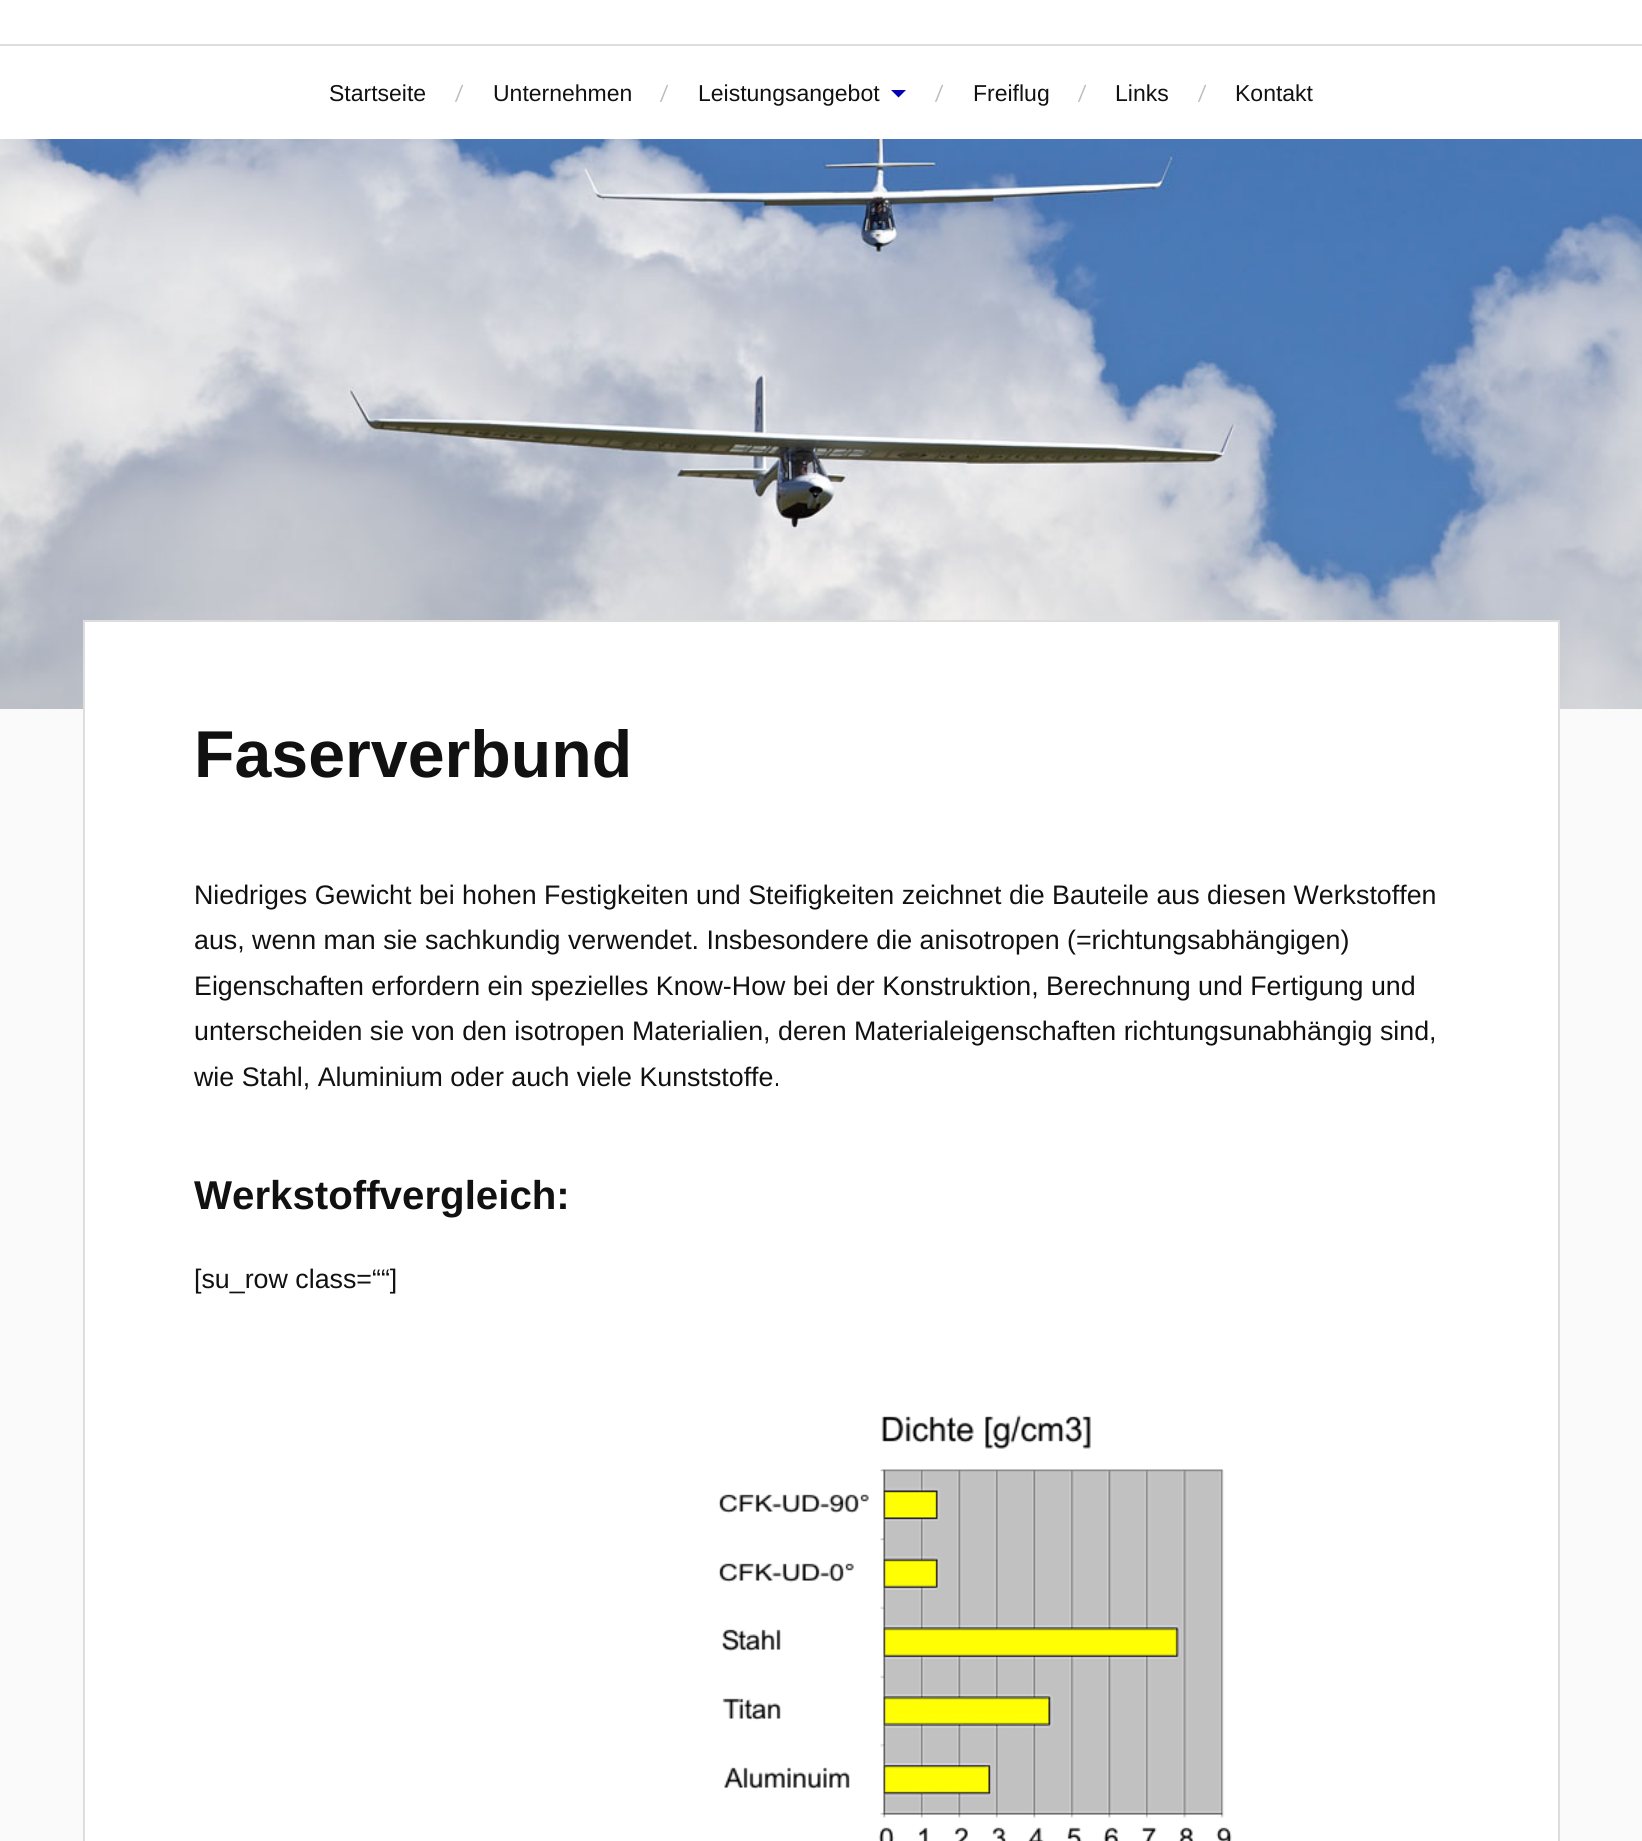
import math
import cairo


def paste(ctx, path, x, y, w, h):
	ctx.save()
	ctx.set_source_surface(cairo.ImageSurface.create_from_png(path), x, y)
	ctx.rectangle(x, y, w, h)
	ctx.fill()
	ctx.restore()

def draw(ctx):
	ctx.set_source_rgb(0.98, 0.98, 0.98)
	ctx.paint()
	ctx.set_source_rgb(1, 1, 1)
	ctx.rectangle(0, 0, 1642, 44)
	ctx.rectangle(0, 46, 1642, 93)
	ctx.fill()
	ctx.set_source_rgb(0.867, 0.867, 0.867)
	ctx.rectangle(0, 44, 1642, 2)
	ctx.fill()
	ctx.select_font_face('Liberation Sans')
	ctx.set_font_size(23)
	ctx.set_source_rgb(0.067, 0.067, 0.067)
	ctx.move_to(329, 101)
	ctx.show_text('Startseite')
	ctx.select_font_face('Lato')
	ctx.set_font_size(22)
	ctx.set_source_rgb(0.733, 0.733, 0.733)
	ctx.move_to(455, 101)
	ctx.show_text('/')
	ctx.select_font_face('Liberation Sans')
	ctx.set_font_size(23)
	ctx.set_source_rgb(0.067, 0.067, 0.067)
	ctx.move_to(493, 101)
	ctx.show_text('Unternehmen')
	ctx.select_font_face('Lato')
	ctx.set_font_size(22)
	ctx.set_source_rgb(0.733, 0.733, 0.733)
	ctx.move_to(660, 101)
	ctx.show_text('/')
	ctx.select_font_face('Liberation Sans')
	ctx.set_font_size(23)
	ctx.set_source_rgb(0.067, 0.067, 0.067)
	ctx.move_to(698, 101)
	ctx.show_text('Leistungsangebot')
	ctx.set_source_rgb(0.012, 0, 0.714)
	ctx.new_path()
	ctx.move_to(891, 90)
	ctx.line_to(906, 90)
	ctx.line_to(898.5, 97.5)
	ctx.close_path()
	ctx.fill()
	ctx.select_font_face('Lato')
	ctx.set_font_size(22)
	ctx.set_source_rgb(0.733, 0.733, 0.733)
	ctx.move_to(935, 101)
	ctx.show_text('/')
	ctx.select_font_face('Liberation Sans')
	ctx.set_font_size(23)
	ctx.set_source_rgb(0.067, 0.067, 0.067)
	ctx.move_to(973, 101)
	ctx.show_text('Freiflug')
	ctx.select_font_face('Lato')
	ctx.set_font_size(22)
	ctx.set_source_rgb(0.733, 0.733, 0.733)
	ctx.move_to(1078, 101)
	ctx.show_text('/')
	ctx.select_font_face('Liberation Sans')
	ctx.set_font_size(23)
	ctx.set_source_rgb(0.067, 0.067, 0.067)
	ctx.move_to(1115, 101)
	ctx.show_text('Links')
	ctx.select_font_face('Lato')
	ctx.set_font_size(22)
	ctx.set_source_rgb(0.733, 0.733, 0.733)
	ctx.move_to(1198, 101)
	ctx.show_text('/')
	ctx.select_font_face('Liberation Sans')
	ctx.set_font_size(23)
	ctx.set_source_rgb(0.067, 0.067, 0.067)
	ctx.move_to(1235, 101)
	ctx.show_text('Kontakt')
	paste(ctx, 'media/1.png', 0, 139, 1642, 570)
	ctx.set_source_rgb(1, 1, 1)
	ctx.rectangle(84, 621, 1475, 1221)
	ctx.fill_preserve()
	ctx.set_source_rgb(0.867, 0.867, 0.867)
	ctx.stroke()
	ctx.select_font_face('Liberation Sans', cairo.FONT_SLANT_NORMAL, cairo.FONT_WEIGHT_BOLD)
	ctx.set_font_size(66.25)
	ctx.set_source_rgb(0.067, 0.067, 0.067)
	ctx.move_to(194, 777)
	ctx.show_text('Faserverbund')
	ctx.select_font_face('Liberation Sans')
	ctx.set_font_size(26.8)
	for x, y, s in [
		(194, 904, 'Niedriges Gewicht bei hohen Festigkeiten und Steifigkeiten zeichnet die Bauteile aus diesen Werkstoffen'),
		(194, 949, 'aus, wenn man sie sachkundig verwendet. Insbesondere die anisotropen (=richtungsabhängigen)'),
		(194, 995, 'Eigenschaften erfordern ein spezielles Know-How bei der Konstruktion, Berechnung und Fertigung und'),
		(194, 1040, 'unterscheiden sie von den isotropen Materialien, deren Materialeigenschaften richtungsunabhängig sind,'),
		(194, 1086, 'wie Stahl, Aluminium oder auch viele Kunststoffe.'),
	]:
		ctx.move_to(x, y)
		ctx.show_text(s)
	ctx.select_font_face('Liberation Sans', cairo.FONT_SLANT_NORMAL, cairo.FONT_WEIGHT_BOLD)
	ctx.set_font_size(40.25)
	ctx.move_to(194, 1209)
	ctx.show_text('Werkstoffvergleich:')
	ctx.select_font_face('Liberation Sans')
	ctx.set_font_size(26.8)
	ctx.move_to(194, 1288)
	ctx.show_text('[su_row class=““]')
	paste(ctx, 'media/2.png', 718, 1415, 514, 426)


surface = cairo.ImageSurface(cairo.FORMAT_RGB24, 1642, 1841)
ctx = cairo.Context(surface)
options = cairo.FontOptions()
options.set_hint_metrics(cairo.HINT_METRICS_OFF)
options.set_hint_style(cairo.HINT_STYLE_NONE)
ctx.set_font_options(options)
ctx.set_miter_limit(4)
draw(ctx)
surface.write_to_png('image.png')
